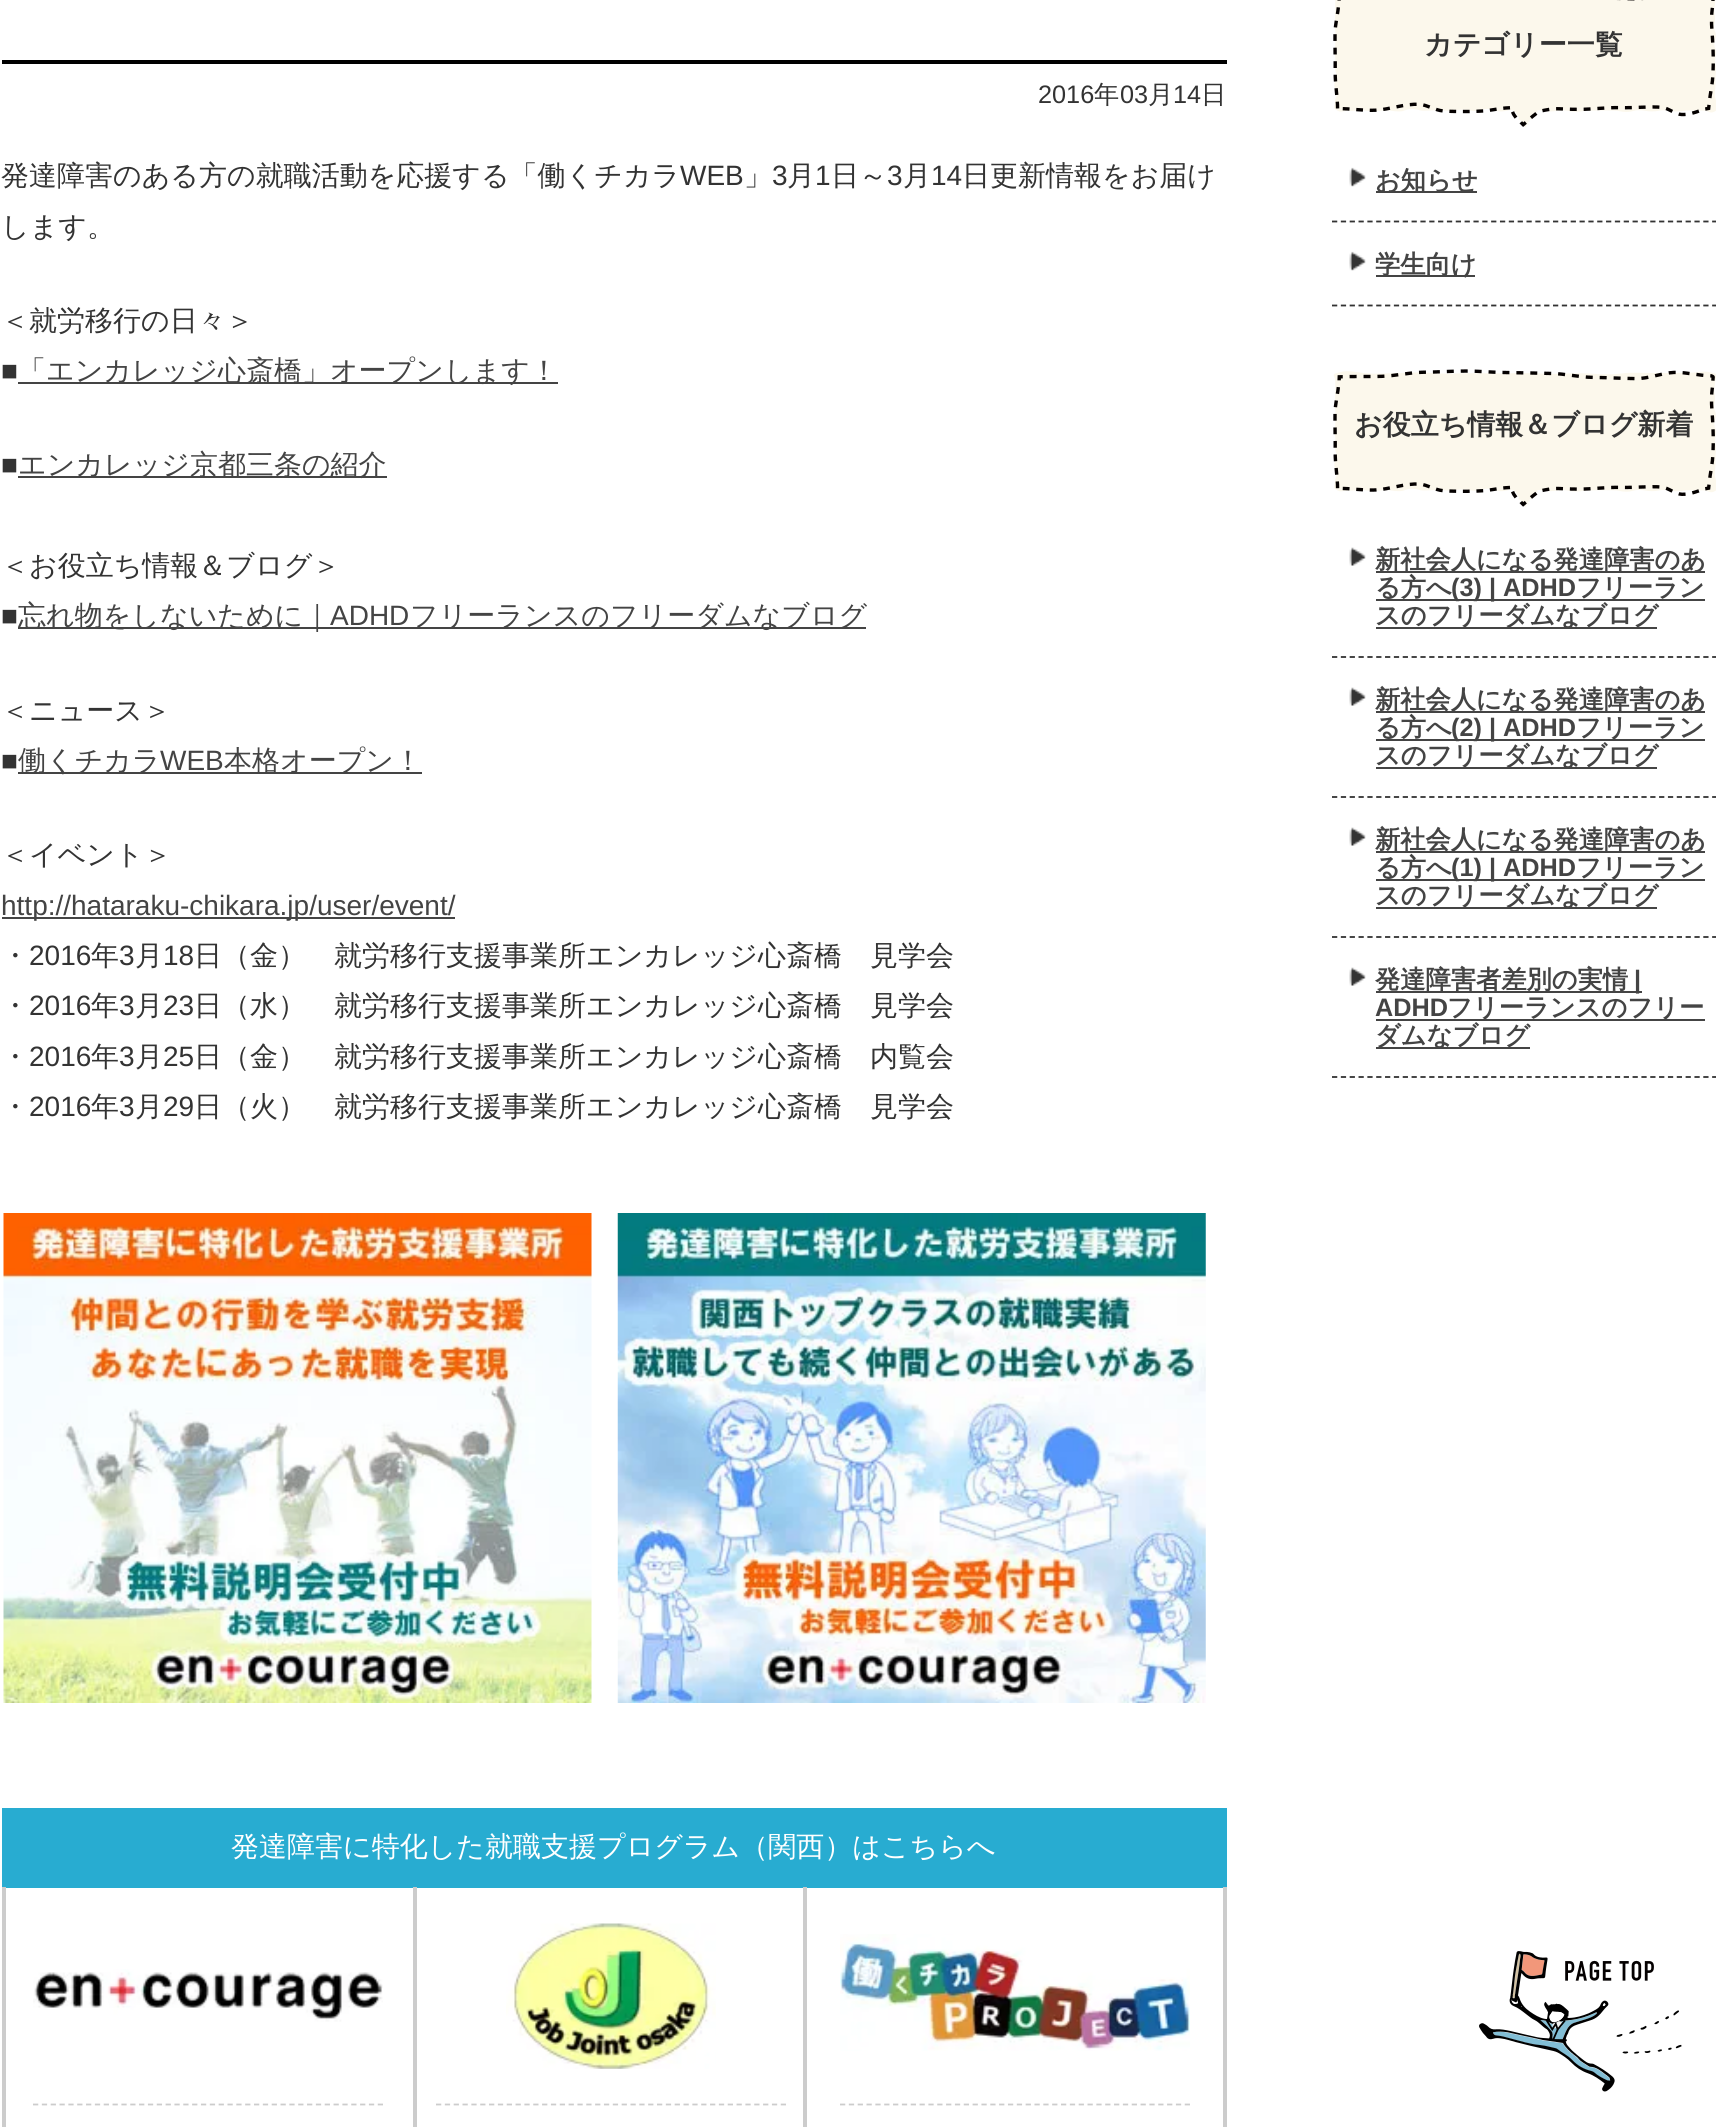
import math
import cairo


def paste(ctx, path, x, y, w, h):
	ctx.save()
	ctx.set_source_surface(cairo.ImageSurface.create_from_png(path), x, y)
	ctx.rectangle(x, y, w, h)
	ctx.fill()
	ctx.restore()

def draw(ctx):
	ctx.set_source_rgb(1, 1, 1)
	ctx.paint()
	ctx.set_source_rgb(0, 0, 0)
	ctx.rectangle(2, 60, 1225, 4)
	ctx.fill()
	ctx.select_font_face('Liberation Sans')
	ctx.set_font_size(25.25)
	ctx.set_source_rgb(0.2, 0.2, 0.2)
	ctx.move_to(1038, 103)
	ctx.show_text('2016')
	ctx.select_font_face('WenQuanYi Zen Hei Medium')
	ctx.move_to(1094, 103)
	ctx.show_text('年')
	ctx.select_font_face('Liberation Sans')
	ctx.move_to(1120, 103)
	ctx.show_text('03')
	ctx.select_font_face('WenQuanYi Zen Hei Medium')
	ctx.move_to(1148, 103)
	ctx.show_text('月')
	ctx.select_font_face('Liberation Sans')
	ctx.move_to(1173, 103)
	ctx.show_text('14')
	ctx.select_font_face('WenQuanYi Zen Hei Medium')
	ctx.move_to(1201, 103)
	ctx.show_text('日')
	ctx.set_font_size(28)
	ctx.move_to(1, 185)
	ctx.show_text('発達障害のある方の就職活動を応援する「働くチカラ')
	ctx.select_font_face('Liberation Sans')
	ctx.move_to(680, 185)
	ctx.show_text('WEB')
	ctx.select_font_face('WenQuanYi Zen Hei Medium')
	ctx.move_to(744, 185)
	ctx.show_text('」')
	ctx.select_font_face('Liberation Sans')
	ctx.move_to(772, 185)
	ctx.show_text('3')
	ctx.select_font_face('WenQuanYi Zen Hei Medium')
	ctx.move_to(787, 185)
	ctx.show_text('月')
	ctx.select_font_face('Liberation Sans')
	ctx.move_to(815, 185)
	ctx.show_text('1')
	ctx.select_font_face('WenQuanYi Zen Hei Medium')
	ctx.move_to(831, 185)
	ctx.show_text('日～')
	ctx.select_font_face('Liberation Sans')
	ctx.move_to(887, 185)
	ctx.show_text('3')
	ctx.select_font_face('WenQuanYi Zen Hei Medium')
	ctx.move_to(903, 185)
	ctx.show_text('月')
	ctx.select_font_face('Liberation Sans')
	ctx.move_to(931, 185)
	ctx.show_text('14')
	ctx.select_font_face('WenQuanYi Zen Hei Medium')
	for x, y, s in [
		(962, 185, '日更新情報をお届け'),
		(1, 236, 'します。'),
		(1, 330, '＜就労移行の日々＞'),
	]:
		ctx.move_to(x, y)
		ctx.show_text(s)
	ctx.select_font_face('Liberation Sans')
	ctx.move_to(1, 380)
	ctx.show_text('■')
	ctx.set_source_rgb(0.267, 0.267, 0.267)
	ctx.rectangle(18, 382, 540, 2)
	ctx.fill()
	ctx.select_font_face('WenQuanYi Zen Hei Medium')
	ctx.move_to(18, 380)
	ctx.show_text('「エンカレッジ心斎橋」オープンします！')
	ctx.select_font_face('Liberation Sans')
	ctx.set_source_rgb(0.2, 0.2, 0.2)
	ctx.move_to(1, 474)
	ctx.show_text('■')
	ctx.set_source_rgb(0.267, 0.267, 0.267)
	ctx.rectangle(18, 476, 369, 2)
	ctx.fill()
	ctx.select_font_face('WenQuanYi Zen Hei Medium')
	ctx.move_to(18, 474)
	ctx.show_text('エンカレッジ京都三条の紹介')
	ctx.set_source_rgb(0.2, 0.2, 0.2)
	ctx.move_to(1, 575)
	ctx.show_text('＜お役立ち情報＆ブログ＞')
	ctx.select_font_face('Liberation Sans')
	ctx.move_to(1, 625)
	ctx.show_text('■')
	ctx.set_source_rgb(0.267, 0.267, 0.267)
	ctx.rectangle(18, 627, 848, 2)
	ctx.fill()
	ctx.select_font_face('WenQuanYi Zen Hei Medium')
	ctx.move_to(18, 625)
	ctx.show_text('忘れ物をしないために｜')
	ctx.select_font_face('Liberation Sans')
	ctx.move_to(330, 625)
	ctx.show_text('ADHD')
	ctx.select_font_face('WenQuanYi Zen Hei Medium')
	ctx.move_to(410, 625)
	ctx.show_text('フリーランスのフリーダムなブログ')
	ctx.set_source_rgb(0.2, 0.2, 0.2)
	ctx.move_to(1, 720)
	ctx.show_text('＜ニュース＞')
	ctx.select_font_face('Liberation Sans')
	ctx.move_to(1, 770)
	ctx.show_text('■')
	ctx.set_source_rgb(0.267, 0.267, 0.267)
	ctx.rectangle(18, 772, 404, 2)
	ctx.fill()
	ctx.select_font_face('WenQuanYi Zen Hei Medium')
	ctx.move_to(18, 770)
	ctx.show_text('働くチカラ')
	ctx.select_font_face('Liberation Sans')
	ctx.move_to(160, 770)
	ctx.show_text('WEB')
	ctx.select_font_face('WenQuanYi Zen Hei Medium')
	ctx.move_to(224, 770)
	ctx.show_text('本格オープン！')
	ctx.set_source_rgb(0.2, 0.2, 0.2)
	ctx.move_to(1, 864)
	ctx.show_text('＜イベント＞')
	ctx.set_source_rgb(0.267, 0.267, 0.267)
	ctx.rectangle(2, 917, 453, 2)
	ctx.fill()
	ctx.select_font_face('Liberation Sans')
	ctx.move_to(1, 915)
	ctx.show_text('http://hataraku-chikara.jp/user/event/')
	ctx.select_font_face('WenQuanYi Zen Hei Medium')
	ctx.set_source_rgb(0.2, 0.2, 0.2)
	ctx.move_to(1, 965)
	ctx.show_text('・')
	ctx.select_font_face('Liberation Sans')
	ctx.move_to(29, 965)
	ctx.show_text('2016')
	ctx.select_font_face('WenQuanYi Zen Hei Medium')
	ctx.move_to(91, 965)
	ctx.show_text('年')
	ctx.select_font_face('Liberation Sans')
	ctx.move_to(119, 965)
	ctx.show_text('3')
	ctx.select_font_face('WenQuanYi Zen Hei Medium')
	ctx.move_to(135, 965)
	ctx.show_text('月')
	ctx.select_font_face('Liberation Sans')
	ctx.move_to(163, 965)
	ctx.show_text('18')
	ctx.select_font_face('WenQuanYi Zen Hei Medium')
	ctx.move_to(194, 965)
	ctx.show_text('日（金）　就労移行支援事業所エンカレッジ心斎橋　見学会')
	ctx.move_to(1, 1015)
	ctx.show_text('・')
	ctx.select_font_face('Liberation Sans')
	ctx.move_to(29, 1015)
	ctx.show_text('2016')
	ctx.select_font_face('WenQuanYi Zen Hei Medium')
	ctx.move_to(91, 1015)
	ctx.show_text('年')
	ctx.select_font_face('Liberation Sans')
	ctx.move_to(119, 1015)
	ctx.show_text('3')
	ctx.select_font_face('WenQuanYi Zen Hei Medium')
	ctx.move_to(135, 1015)
	ctx.show_text('月')
	ctx.select_font_face('Liberation Sans')
	ctx.move_to(163, 1015)
	ctx.show_text('23')
	ctx.select_font_face('WenQuanYi Zen Hei Medium')
	ctx.move_to(194, 1015)
	ctx.show_text('日（水）　就労移行支援事業所エンカレッジ心斎橋　見学会')
	ctx.move_to(1, 1066)
	ctx.show_text('・')
	ctx.select_font_face('Liberation Sans')
	ctx.move_to(29, 1066)
	ctx.show_text('2016')
	ctx.select_font_face('WenQuanYi Zen Hei Medium')
	ctx.move_to(91, 1066)
	ctx.show_text('年')
	ctx.select_font_face('Liberation Sans')
	ctx.move_to(119, 1066)
	ctx.show_text('3')
	ctx.select_font_face('WenQuanYi Zen Hei Medium')
	ctx.move_to(135, 1066)
	ctx.show_text('月')
	ctx.select_font_face('Liberation Sans')
	ctx.move_to(163, 1066)
	ctx.show_text('25')
	ctx.select_font_face('WenQuanYi Zen Hei Medium')
	ctx.move_to(194, 1066)
	ctx.show_text('日（金）　就労移行支援事業所エンカレッジ心斎橋　内覧会')
	ctx.move_to(1, 1116)
	ctx.show_text('・')
	ctx.select_font_face('Liberation Sans')
	ctx.move_to(29, 1116)
	ctx.show_text('2016')
	ctx.select_font_face('WenQuanYi Zen Hei Medium')
	ctx.move_to(91, 1116)
	ctx.show_text('年')
	ctx.select_font_face('Liberation Sans')
	ctx.move_to(119, 1116)
	ctx.show_text('3')
	ctx.select_font_face('WenQuanYi Zen Hei Medium')
	ctx.move_to(135, 1116)
	ctx.show_text('月')
	ctx.select_font_face('Liberation Sans')
	ctx.move_to(163, 1116)
	ctx.show_text('29')
	ctx.select_font_face('WenQuanYi Zen Hei Medium')
	ctx.move_to(194, 1116)
	ctx.show_text('日（火）　就労移行支援事業所エンカレッジ心斎橋　見学会')
	paste(ctx, 'media/1.png', 3, 1213, 589, 490)
	paste(ctx, 'media/2.png', 617, 1213, 589, 490)
	ctx.set_source_rgb(0.157, 0.675, 0.82)
	ctx.rectangle(2, 1808, 1225, 80)
	ctx.fill()
	ctx.set_source_rgb(1, 1, 1)
	ctx.move_to(231, 1856)
	ctx.show_text('発達障害に特化した就職支援プログラム（関西）はこちらへ')
	ctx.set_source_rgb(0.8, 0.8, 0.8)
	ctx.rectangle(2, 1887, 4, 240)
	ctx.fill()
	paste(ctx, 'media/3.png', 33, 1969, 350, 53)
	ctx.new_path()
	ctx.move_to(33, 2104.5)
	ctx.line_to(383, 2104.5)
	ctx.set_line_width(1.8)
	ctx.set_dash([5.25, 3.59])
	ctx.stroke()
	ctx.rectangle(413, 1887, 4, 240)
	ctx.fill()
	paste(ctx, 'media/4.png', 506, 1923, 210, 146)
	ctx.new_path()
	ctx.move_to(436, 2104.5)
	ctx.line_to(786, 2104.5)
	ctx.stroke()
	ctx.rectangle(1223, 1887, 4, 240)
	ctx.fill()
	ctx.rectangle(803, 1887, 4, 240)
	ctx.fill()
	paste(ctx, 'media/5.png', 840, 1934, 350, 117)
	ctx.new_path()
	ctx.move_to(840, 2104.5)
	ctx.line_to(1190, 2104.5)
	ctx.stroke()
	paste(ctx, 'media/6.png', 1333, 0, 383, 127)
	ctx.select_font_face('WenQuanYi Zen Hei', cairo.FONT_SLANT_NORMAL, cairo.FONT_WEIGHT_BOLD)
	ctx.set_source_rgb(0.2, 0.2, 0.2)
	ctx.move_to(1424, 54)
	ctx.show_text('カテゴリー一覧')
	ctx.new_path()
	ctx.move_to(1332, 221.5)
	ctx.line_to(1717, 221.5)
	ctx.stroke()
	paste(ctx, 'media/7.png', 1349, 167, 17, 20)
	ctx.set_source_rgb(0.267, 0.267, 0.267)
	ctx.rectangle(1376, 191, 101, 2)
	ctx.fill()
	ctx.set_font_size(25.25)
	ctx.move_to(1375, 189)
	ctx.show_text('お知らせ')
	ctx.new_path()
	ctx.move_to(1332, 305.5)
	ctx.line_to(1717, 305.5)
	ctx.set_source_rgb(0.2, 0.2, 0.2)
	ctx.stroke()
	paste(ctx, 'media/7.png', 1349, 251, 17, 20)
	ctx.set_source_rgb(0.267, 0.267, 0.267)
	ctx.rectangle(1376, 275, 99, 2)
	ctx.fill()
	ctx.move_to(1375, 273)
	ctx.show_text('学生向け')
	paste(ctx, 'media/8.png', 1333, 369, 383, 138)
	ctx.set_font_size(28)
	ctx.set_source_rgb(0.2, 0.2, 0.2)
	ctx.move_to(1354, 434)
	ctx.show_text('お役立ち情報＆ブログ新着')
	ctx.new_path()
	ctx.move_to(1332, 657)
	ctx.line_to(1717, 657)
	ctx.stroke()
	paste(ctx, 'media/9.png', 1349, 547, 17, 19)
	ctx.set_source_rgb(0.267, 0.267, 0.267)
	ctx.rectangle(1376, 571, 329, 2)
	ctx.fill()
	ctx.set_font_size(25.25)
	ctx.move_to(1375, 568)
	ctx.show_text('新社会人になる発達障害のあ')
	ctx.move_to(1375, 596)
	ctx.show_text('る方へ')
	ctx.rectangle(1376, 599, 329, 2)
	ctx.fill()
	ctx.select_font_face('Liberation Sans', cairo.FONT_SLANT_NORMAL, cairo.FONT_WEIGHT_BOLD)
	ctx.move_to(1451, 596)
	ctx.show_text('(3) | ADHD')
	ctx.select_font_face('WenQuanYi Zen Hei', cairo.FONT_SLANT_NORMAL, cairo.FONT_WEIGHT_BOLD)
	ctx.move_to(1576, 596)
	ctx.show_text('フリーラン')
	ctx.rectangle(1376, 627, 281, 2)
	ctx.fill()
	ctx.move_to(1375, 624)
	ctx.show_text('スのフリーダムなブログ')
	ctx.new_path()
	ctx.move_to(1332, 797)
	ctx.line_to(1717, 797)
	ctx.set_source_rgb(0.2, 0.2, 0.2)
	ctx.stroke()
	paste(ctx, 'media/9.png', 1349, 687, 17, 19)
	ctx.set_source_rgb(0.267, 0.267, 0.267)
	ctx.rectangle(1376, 711, 329, 2)
	ctx.fill()
	ctx.move_to(1375, 708)
	ctx.show_text('新社会人になる発達障害のあ')
	ctx.move_to(1375, 736)
	ctx.show_text('る方へ')
	ctx.rectangle(1376, 739, 329, 2)
	ctx.fill()
	ctx.select_font_face('Liberation Sans', cairo.FONT_SLANT_NORMAL, cairo.FONT_WEIGHT_BOLD)
	ctx.move_to(1451, 736)
	ctx.show_text('(2) | ADHD')
	ctx.select_font_face('WenQuanYi Zen Hei', cairo.FONT_SLANT_NORMAL, cairo.FONT_WEIGHT_BOLD)
	ctx.move_to(1576, 736)
	ctx.show_text('フリーラン')
	ctx.rectangle(1376, 767, 281, 2)
	ctx.fill()
	ctx.move_to(1375, 764)
	ctx.show_text('スのフリーダムなブログ')
	ctx.new_path()
	ctx.move_to(1332, 937)
	ctx.line_to(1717, 937)
	ctx.set_source_rgb(0.2, 0.2, 0.2)
	ctx.stroke()
	paste(ctx, 'media/9.png', 1349, 827, 17, 19)
	ctx.set_source_rgb(0.267, 0.267, 0.267)
	ctx.rectangle(1376, 851, 329, 2)
	ctx.fill()
	ctx.move_to(1375, 848)
	ctx.show_text('新社会人になる発達障害のあ')
	ctx.move_to(1375, 876)
	ctx.show_text('る方へ')
	ctx.rectangle(1376, 879, 329, 2)
	ctx.fill()
	ctx.select_font_face('Liberation Sans', cairo.FONT_SLANT_NORMAL, cairo.FONT_WEIGHT_BOLD)
	ctx.move_to(1451, 876)
	ctx.show_text('(1) | ADHD')
	ctx.select_font_face('WenQuanYi Zen Hei', cairo.FONT_SLANT_NORMAL, cairo.FONT_WEIGHT_BOLD)
	ctx.move_to(1576, 876)
	ctx.show_text('フリーラン')
	ctx.rectangle(1376, 907, 281, 2)
	ctx.fill()
	ctx.move_to(1375, 904)
	ctx.show_text('スのフリーダムなブログ')
	ctx.new_path()
	ctx.move_to(1332, 1077)
	ctx.line_to(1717, 1077)
	ctx.set_source_rgb(0.2, 0.2, 0.2)
	ctx.stroke()
	paste(ctx, 'media/9.png', 1349, 967, 17, 19)
	ctx.set_source_rgb(0.267, 0.267, 0.267)
	ctx.rectangle(1376, 991, 266, 2)
	ctx.fill()
	ctx.move_to(1375, 988)
	ctx.show_text('発達障害者差別の実情')
	ctx.select_font_face('Liberation Sans', cairo.FONT_SLANT_NORMAL, cairo.FONT_WEIGHT_BOLD)
	ctx.move_to(1634, 988)
	ctx.show_text('|')
	ctx.move_to(1375, 1016)
	ctx.show_text('ADHD')
	ctx.rectangle(1376, 1019, 329, 2)
	ctx.fill()
	ctx.select_font_face('WenQuanYi Zen Hei', cairo.FONT_SLANT_NORMAL, cairo.FONT_WEIGHT_BOLD)
	ctx.move_to(1447, 1016)
	ctx.show_text('フリーランスのフリー')
	ctx.rectangle(1376, 1047, 154, 2)
	ctx.fill()
	ctx.move_to(1375, 1044)
	ctx.show_text('ダムなブログ')
	paste(ctx, 'media/10.png', 1479, 1951, 203, 141)


surface = cairo.ImageSurface(cairo.FORMAT_RGB24, 1716, 2127)
ctx = cairo.Context(surface)
options = cairo.FontOptions()
options.set_hint_metrics(cairo.HINT_METRICS_OFF)
options.set_hint_style(cairo.HINT_STYLE_NONE)
ctx.set_font_options(options)
ctx.set_miter_limit(4)
draw(ctx)
surface.write_to_png('image.png')
